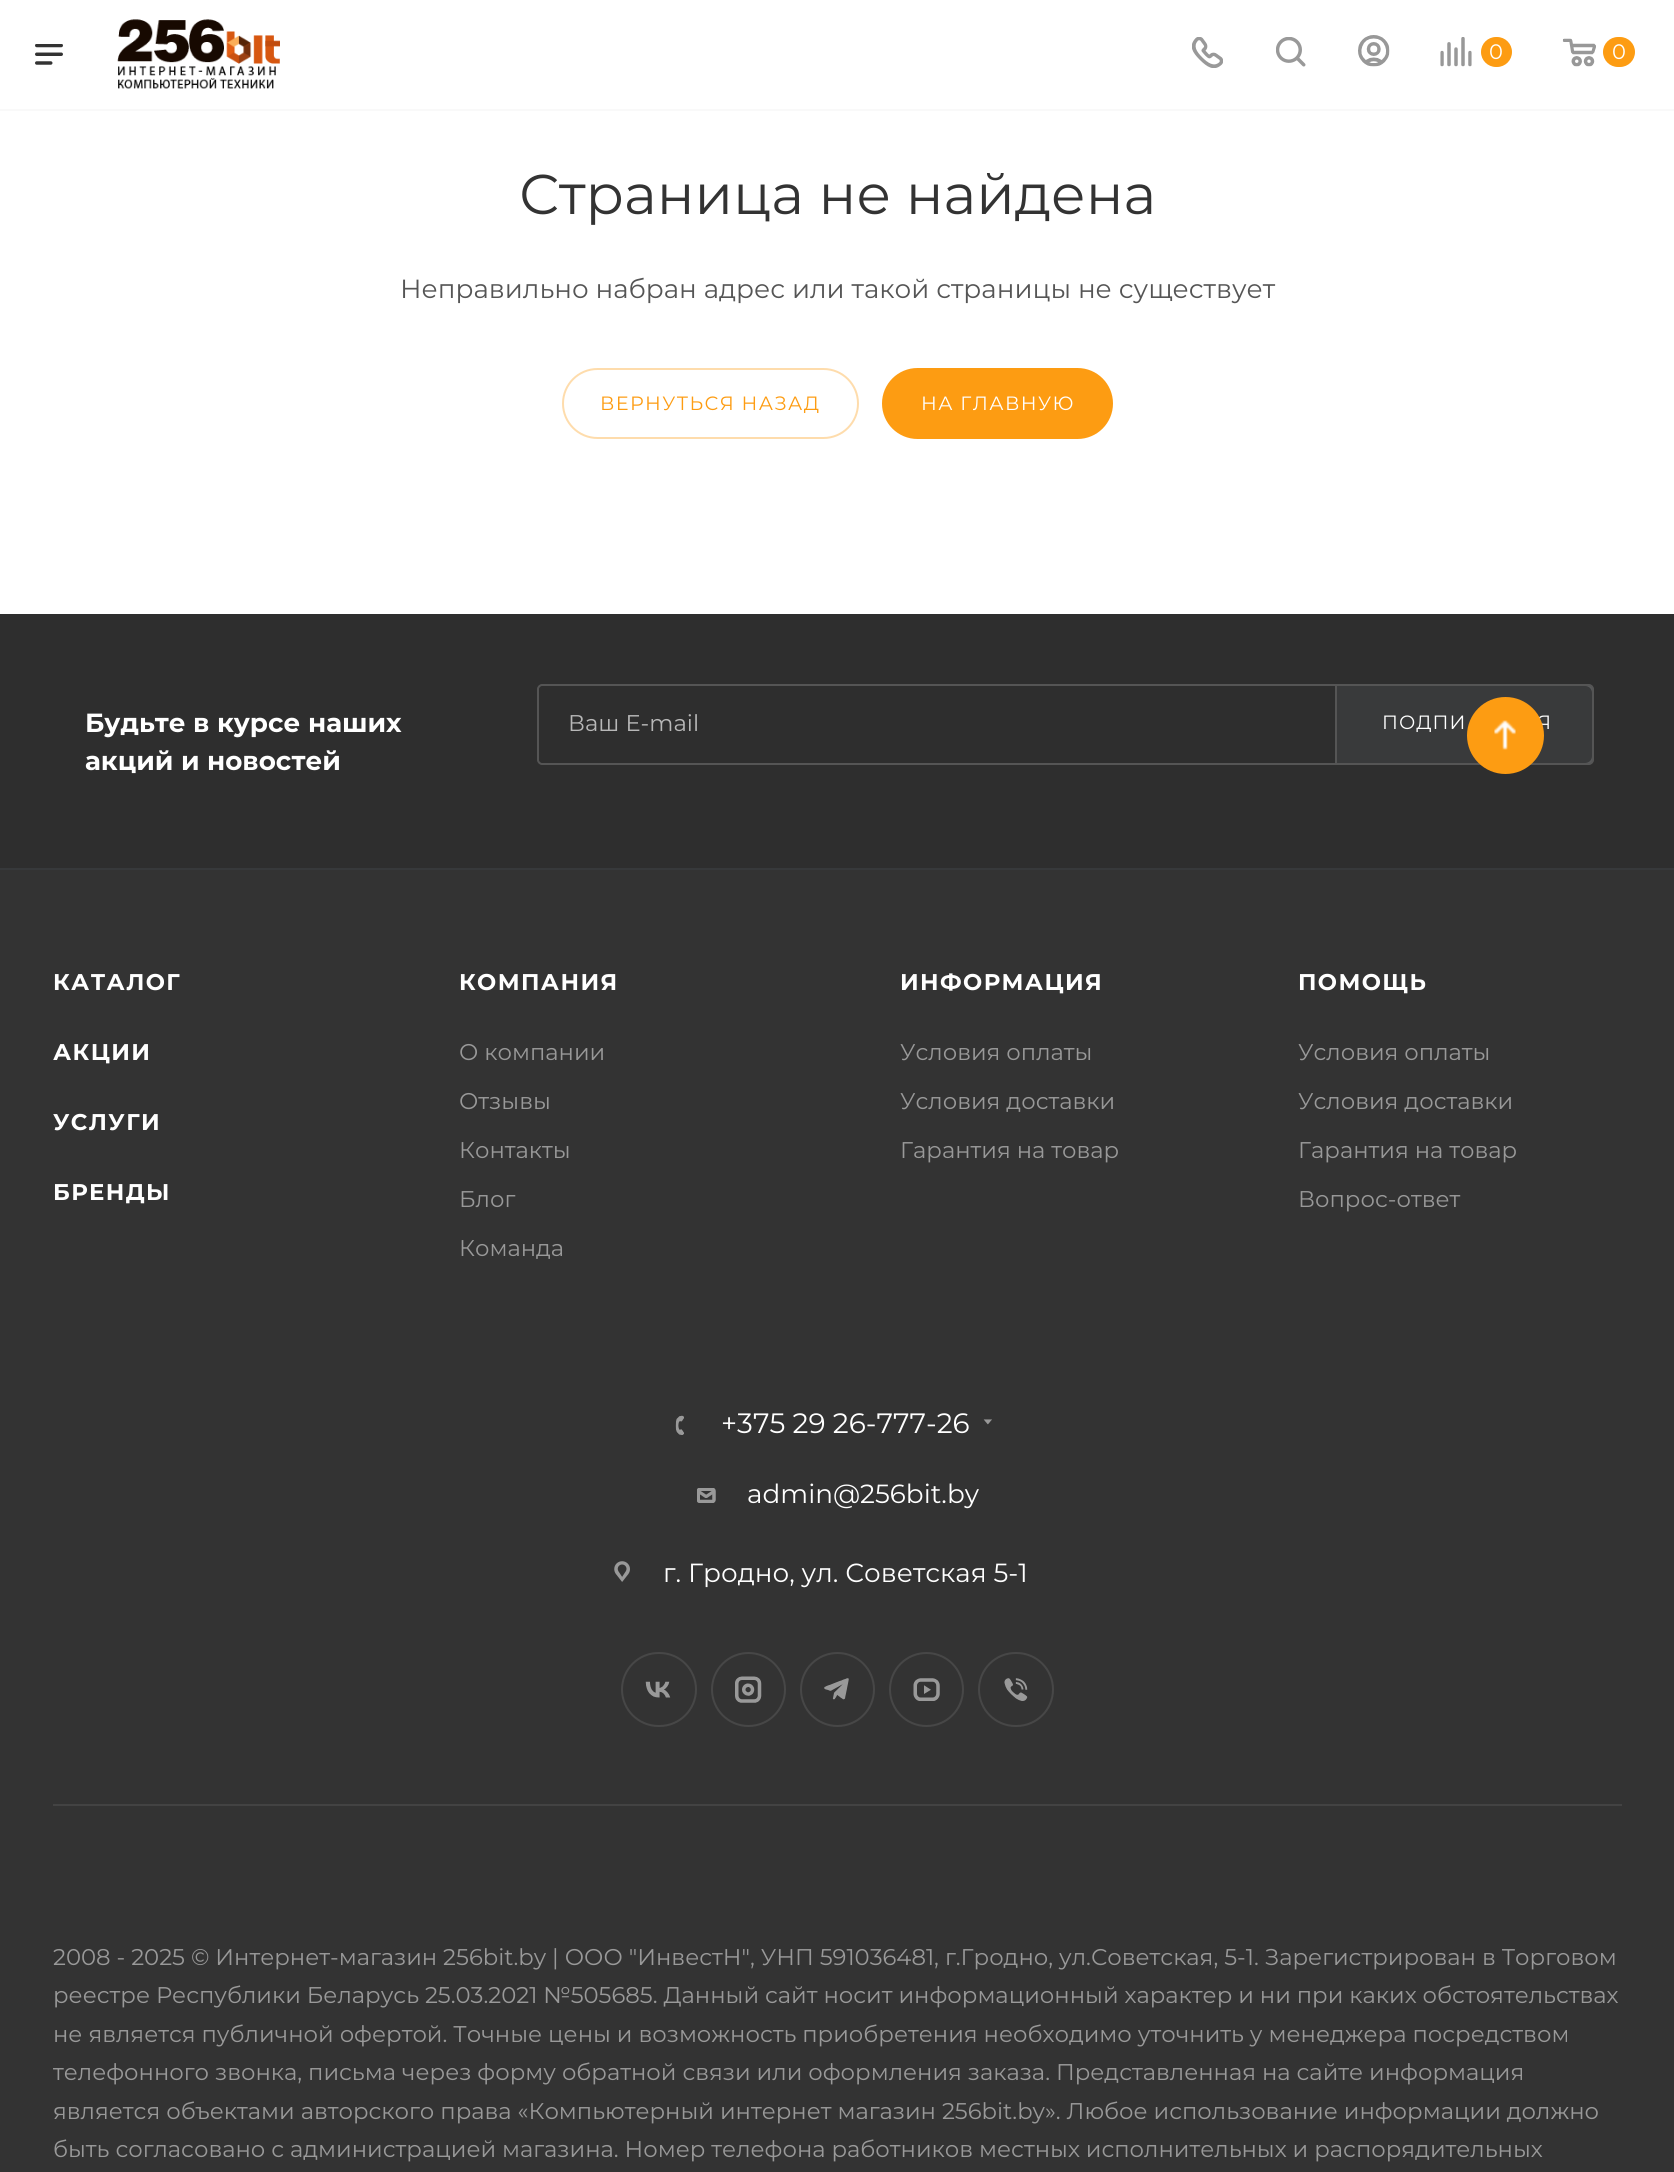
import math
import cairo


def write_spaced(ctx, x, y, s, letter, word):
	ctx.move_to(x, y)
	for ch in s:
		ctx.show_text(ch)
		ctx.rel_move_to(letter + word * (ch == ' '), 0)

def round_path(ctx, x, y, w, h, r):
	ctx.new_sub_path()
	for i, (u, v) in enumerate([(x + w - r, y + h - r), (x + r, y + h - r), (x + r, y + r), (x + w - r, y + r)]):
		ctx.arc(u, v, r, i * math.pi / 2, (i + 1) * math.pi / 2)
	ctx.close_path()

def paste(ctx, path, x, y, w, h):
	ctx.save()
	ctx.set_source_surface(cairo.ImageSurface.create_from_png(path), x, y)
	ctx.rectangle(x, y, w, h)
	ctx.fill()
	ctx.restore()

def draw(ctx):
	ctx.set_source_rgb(1, 1, 1)
	ctx.paint()
	ctx.set_source_rgb(0.973, 0.973, 0.973)
	ctx.rectangle(0, 109, 1674, 2)
	ctx.fill()
	paste(ctx, 'media/1.png', 35, 44, 28, 21)
	paste(ctx, 'media/2.png', 117, 19, 163, 70)
	paste(ctx, 'media/3.png', 1192, 37, 31, 31)
	paste(ctx, 'media/4.png', 1276, 37, 30, 30)
	paste(ctx, 'media/5.png', 1358, 35, 32, 32)
	paste(ctx, 'media/6.png', 1440, 37, 32, 30)
	ctx.set_source_rgb(0.992, 0.612, 0.071)
	round_path(ctx, 1481, 37, 31, 30, 15)
	ctx.fill()
	ctx.select_font_face('Montserrat')
	ctx.set_font_size(21)
	ctx.set_source_rgb(1, 1, 1)
	ctx.move_to(1489, 59)
	ctx.show_text('0')
	paste(ctx, 'media/7.png', 1562, 38, 34, 29)
	ctx.set_source_rgb(0.992, 0.612, 0.071)
	round_path(ctx, 1603, 37, 32, 30, 15)
	ctx.fill()
	ctx.set_source_rgb(1, 1, 1)
	ctx.move_to(1612, 59)
	ctx.show_text('0')
	ctx.set_font_size(56)
	ctx.set_source_rgb(0.2, 0.2, 0.2)
	ctx.move_to(519, 214)
	ctx.show_text('Страница не найдена')
	ctx.set_font_size(26.25)
	ctx.set_source_rgb(0.333, 0.333, 0.333)
	ctx.move_to(400, 298)
	ctx.show_text('Неправильно набран адрес или такой страницы не существует')
	round_path(ctx, 563, 369, 295, 69, 34.5)
	ctx.set_source_rgb(0.996, 0.863, 0.675)
	ctx.stroke()
	ctx.set_font_size(19.25)
	ctx.set_source_rgb(0.992, 0.612, 0.071)
	write_spaced(ctx, 600, 410, 'ВЕРНУТЬСЯ НАЗАД', 1.4, 0)
	round_path(ctx, 883, 369, 229, 69, 34.5)
	ctx.fill_preserve()
	ctx.stroke()
	ctx.set_source_rgb(1, 1, 1)
	write_spaced(ctx, 921, 410, 'НА ГЛАВНУЮ', 1.4, 0)
	ctx.set_source_rgb(0.18, 0.18, 0.18)
	ctx.rectangle(0, 614, 1674, 254)
	ctx.fill()
	ctx.new_path()
	ctx.move_to(542, 685)
	ctx.line_to(1585, 685)
	ctx.curve_to(1589.5, 685, 1593, 688.5, 1593, 693)
	ctx.line_to(1593, 756)
	ctx.curve_to(1593, 760.5, 1589.5, 764, 1585, 764)
	ctx.line_to(542, 764)
	ctx.curve_to(540, 764, 538, 762, 538, 760)
	ctx.line_to(538, 689)
	ctx.curve_to(538, 687, 540, 685, 542, 685)
	ctx.close_path()
	ctx.set_source_rgb(0.333, 0.333, 0.333)
	ctx.stroke()
	ctx.set_source_rgba(0.408, 0.416, 0.431, 0.2)
	ctx.new_path()
	ctx.move_to(1336, 685)
	ctx.line_to(1589, 685)
	ctx.curve_to(1591, 685, 1593, 687, 1593, 689)
	ctx.line_to(1593, 760)
	ctx.curve_to(1593, 762, 1591, 764, 1589, 764)
	ctx.line_to(1336, 764)
	ctx.close_path()
	ctx.fill_preserve()
	ctx.set_source_rgb(0.333, 0.333, 0.333)
	ctx.stroke()
	ctx.set_source_rgb(1, 1, 1)
	write_spaced(ctx, 1537, 729, 'Я', 1, 0)
	ctx.set_source_rgb(0.992, 0.612, 0.071)
	ctx.new_path()
	ctx.arc(1505.5, 735.5, 38.5, 0, 2 * math.pi)
	ctx.fill()
	paste(ctx, 'media/8.png', 1494, 720, 22, 30)
	ctx.set_source_rgb(0.216, 0.224, 0.231)
	ctx.rectangle(0, 868, 1674, 2)
	ctx.fill()
	ctx.select_font_face('Montserrat', cairo.FONT_SLANT_NORMAL, cairo.FONT_WEIGHT_BOLD)
	ctx.set_font_size(26.25)
	ctx.set_source_rgb(1, 1, 1)
	ctx.move_to(85, 732)
	ctx.show_text('Будьте в курсе наших')
	ctx.move_to(85, 770)
	ctx.show_text('акций и новостей')
	ctx.select_font_face('Montserrat')
	ctx.set_font_size(22.75)
	ctx.set_source_rgb(0.722, 0.722, 0.722)
	ctx.move_to(568, 731)
	ctx.show_text('Ваш E-mail')
	ctx.set_font_size(19.25)
	ctx.set_source_rgb(1, 1, 1)
	write_spaced(ctx, 1382, 729, 'ПОДПИ', 1, 0)
	ctx.set_source_rgb(0.2, 0.2, 0.2)
	ctx.rectangle(0, 870, 1674, 1302)
	ctx.fill()
	ctx.select_font_face('Montserrat', cairo.FONT_SLANT_NORMAL, cairo.FONT_WEIGHT_BOLD)
	ctx.set_font_size(22.75)
	ctx.set_source_rgb(1, 1, 1)
	for x, y, s in [
		(53, 990, 'КАТАЛОГ'),
		(53, 1060, 'АКЦИИ'),
		(53, 1130, 'УСЛУГИ'),
		(53, 1200, 'БРЕНДЫ'),
		(459, 990, 'КОМПАНИЯ'),
	]:
		write_spaced(ctx, x, y, s, 1.4, 0)
	ctx.select_font_face('Montserrat')
	ctx.set_source_rgb(0.6, 0.6, 0.6)
	for x, y, s in [
		(459, 1060, 'О компании'),
		(459, 1109, 'Отзывы'),
		(459, 1158, 'Контакты'),
		(459, 1207, 'Блог'),
		(459, 1256, 'Команда'),
	]:
		ctx.move_to(x, y)
		ctx.show_text(s)
	ctx.select_font_face('Montserrat', cairo.FONT_SLANT_NORMAL, cairo.FONT_WEIGHT_BOLD)
	ctx.set_source_rgb(1, 1, 1)
	write_spaced(ctx, 900, 990, 'ИНФОРМАЦИЯ', 1.4, 0)
	ctx.select_font_face('Montserrat')
	ctx.set_source_rgb(0.6, 0.6, 0.6)
	for x, y, s in [
		(900, 1060, 'Условия оплаты'),
		(900, 1109, 'Условия доставки'),
		(900, 1158, 'Гарантия на товар'),
	]:
		ctx.move_to(x, y)
		ctx.show_text(s)
	ctx.select_font_face('Montserrat', cairo.FONT_SLANT_NORMAL, cairo.FONT_WEIGHT_BOLD)
	ctx.set_source_rgb(1, 1, 1)
	write_spaced(ctx, 1298, 990, 'ПОМОЩЬ', 1.4, 0)
	ctx.select_font_face('Montserrat')
	ctx.set_source_rgb(0.6, 0.6, 0.6)
	for x, y, s in [
		(1298, 1060, 'Условия оплаты'),
		(1298, 1109, 'Условия доставки'),
		(1298, 1158, 'Гарантия на товар'),
		(1298, 1207, 'Вопрос-ответ'),
	]:
		ctx.move_to(x, y)
		ctx.show_text(s)
	paste(ctx, 'media/9.png', 675, 1415, 9, 20)
	ctx.set_font_size(28)
	ctx.set_source_rgb(1, 1, 1)
	ctx.move_to(721, 1433)
	ctx.show_text('+375 29 26-777-26')
	paste(ctx, 'media/10.png', 983, 1419, 9, 6)
	paste(ctx, 'media/11.png', 697, 1488, 19, 15)
	ctx.set_font_size(26.25)
	ctx.move_to(747, 1503)
	ctx.show_text('admin@256bit.by')
	paste(ctx, 'media/12.png', 614, 1561, 16, 21)
	ctx.move_to(663, 1582)
	ctx.show_text('г. Гродно, ул. Советская 5-1')
	paste(ctx, 'media/13.png', 645, 1681, 26, 17)
	round_path(ctx, 622, 1653, 74, 73, 36.5)
	ctx.set_source_rgb(0.278, 0.278, 0.278)
	ctx.stroke()
	paste(ctx, 'media/14.png', 735, 1676, 27, 27)
	ctx.arc(748.5, 1689.5, 36.5, 0, 2 * math.pi)
	ctx.stroke()
	paste(ctx, 'media/15.png', 824, 1678, 25, 22)
	ctx.arc(837.5, 1689.5, 36.5, 0, 2 * math.pi)
	ctx.stroke()
	paste(ctx, 'media/16.png', 913, 1678, 27, 23)
	ctx.arc(926.5, 1689.5, 36.5, 0, 2 * math.pi)
	ctx.stroke()
	paste(ctx, 'media/17.png', 1004, 1678, 24, 23)
	round_path(ctx, 979, 1653, 74, 73, 36.5)
	ctx.stroke()
	ctx.set_source_rgb(0.263, 0.263, 0.263)
	ctx.rectangle(53, 1804, 1569, 2)
	ctx.fill()
	ctx.set_font_size(22.75)
	ctx.set_source_rgb(0.6, 0.6, 0.6)
	for x, y, s in [
		(53, 1965, '2008 - 2025 © Интернет-магазин 256bit.by | ООО "ИнвестН", УНП 591036481, г.Гродно, ул.Советская, 5-1. Зарегистрирован в Торговом'),
		(53, 2003, 'реестре Республики Беларусь 25.03.2021 №505685. Данный сайт носит информационный характер и ни при каких обстоятельствах'),
		(53, 2042, 'не является публичной офертой. Точные цены и возможность приобретения необходимо уточнить у менеджера посредством'),
		(53, 2080, 'телефонного звонка, письма через форму обратной связи или оформления заказа. Представленная на сайте информация'),
		(53, 2119, 'является объектами авторского права «Компьютерный интернет магазин 256bit.by». Любое использование информации должно'),
		(53, 2157, 'быть согласовано с администрацией магазина. Номер телефона работников местных исполнительных и распорядительных'),
	]:
		ctx.move_to(x, y)
		ctx.show_text(s)


surface = cairo.ImageSurface(cairo.FORMAT_RGB24, 1674, 2172)
ctx = cairo.Context(surface)
options = cairo.FontOptions()
options.set_hint_metrics(cairo.HINT_METRICS_OFF)
options.set_hint_style(cairo.HINT_STYLE_NONE)
ctx.set_font_options(options)
ctx.set_miter_limit(4)
draw(ctx)
surface.write_to_png('image.png')
